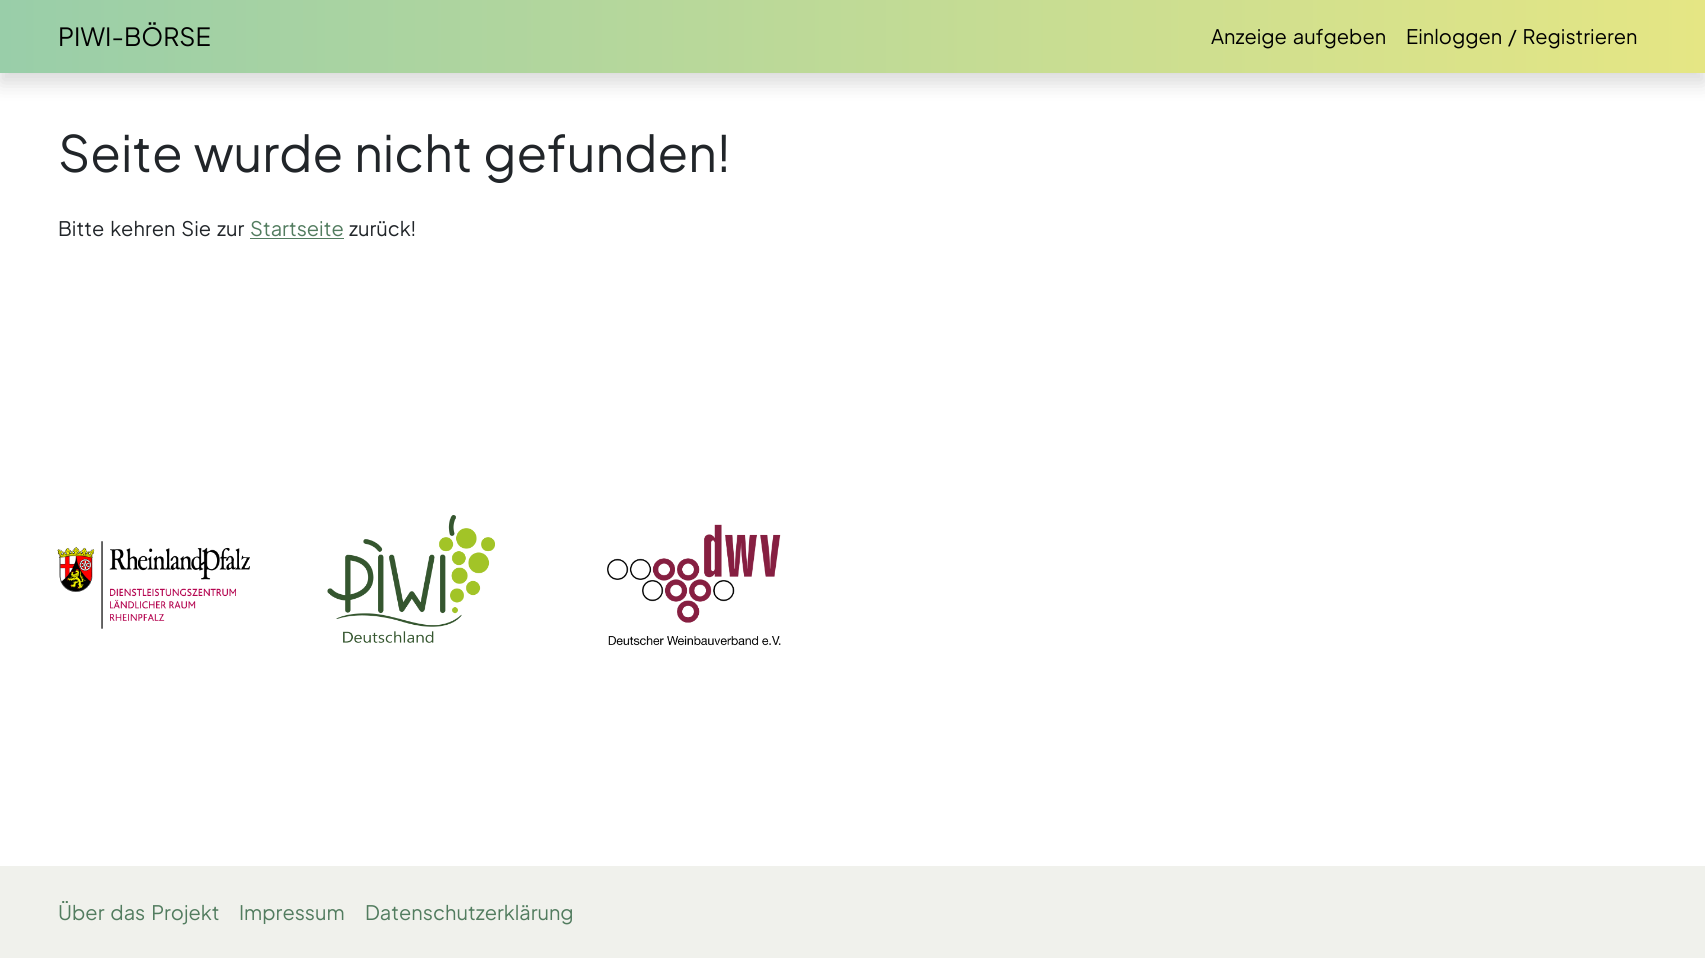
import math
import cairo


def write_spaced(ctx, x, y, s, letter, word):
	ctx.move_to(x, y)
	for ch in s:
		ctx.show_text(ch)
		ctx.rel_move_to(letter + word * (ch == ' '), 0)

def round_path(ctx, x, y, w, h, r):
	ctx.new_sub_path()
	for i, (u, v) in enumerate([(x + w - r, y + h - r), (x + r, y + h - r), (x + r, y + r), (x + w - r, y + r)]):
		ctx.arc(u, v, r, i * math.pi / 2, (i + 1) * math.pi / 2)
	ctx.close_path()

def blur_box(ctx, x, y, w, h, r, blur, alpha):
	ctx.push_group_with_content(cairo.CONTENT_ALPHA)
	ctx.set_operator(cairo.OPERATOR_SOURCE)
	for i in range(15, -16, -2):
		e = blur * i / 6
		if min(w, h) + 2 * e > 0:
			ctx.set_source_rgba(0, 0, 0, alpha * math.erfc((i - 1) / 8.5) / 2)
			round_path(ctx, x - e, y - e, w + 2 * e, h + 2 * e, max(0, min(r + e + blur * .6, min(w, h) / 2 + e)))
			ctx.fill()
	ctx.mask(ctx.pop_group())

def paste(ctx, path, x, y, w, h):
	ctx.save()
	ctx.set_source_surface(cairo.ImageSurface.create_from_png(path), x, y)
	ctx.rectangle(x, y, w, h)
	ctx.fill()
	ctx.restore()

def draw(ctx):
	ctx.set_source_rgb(1, 1, 1)
	ctx.paint()
	ctx.set_source_rgb(0, 0, 0)
	blur_box(ctx, 0, 10, 1705, 73, 0, 10, 0.15)
	gradient = cairo.LinearGradient(0, 36, 1705, 36)
	gradient.add_color_stop_rgba(0, 0.6, 0.808, 0.663, 1)
	gradient.add_color_stop_rgba(1, 0.898, 0.902, 0.518, 1)
	ctx.set_source(gradient)
	ctx.rectangle(0, 0, 1705, 73)
	ctx.fill()
	ctx.select_font_face('Plus Jakarta Sans')
	ctx.set_font_size(25)
	ctx.set_source_rgb(0, 0, 0)
	ctx.move_to(58, 46)
	ctx.show_text('PIWI-BÖRSE')
	ctx.set_font_size(20)
	write_spaced(ctx, 1211, 44, 'Anzeige aufgeben', 0, 2.5)
	ctx.move_to(1406, 44)
	ctx.show_text('Einloggen')
	write_spaced(ctx, 1508, 44, '/ Registrieren', 0, 2.5)
	ctx.set_font_size(50)
	ctx.set_source_rgb(0.129, 0.145, 0.161)
	write_spaced(ctx, 58, 172, 'Seite wurde nicht gefunden!', 0, 2.5)
	ctx.set_font_size(20)
	write_spaced(ctx, 58, 236, 'Bitte kehren Sie zur', 0, 2.5)
	ctx.set_source_rgb(0.322, 0.486, 0.373)
	ctx.move_to(250, 236)
	ctx.show_text('Startseite')
	ctx.rectangle(250, 238, 94, 1)
	ctx.fill()
	ctx.set_source_rgb(0.129, 0.145, 0.161)
	ctx.move_to(349, 236)
	ctx.show_text('zurück!')
	paste(ctx, 'media/1.png', 57, 541, 193, 88)
	paste(ctx, 'media/2.png', 327, 515, 168, 128)
	paste(ctx, 'media/3.png', 607, 524, 174, 122)
	ctx.set_source_rgb(0.941, 0.945, 0.925)
	ctx.rectangle(0, 866, 1705, 92)
	ctx.fill()
	ctx.set_source_rgb(0.322, 0.486, 0.373)
	write_spaced(ctx, 58, 920, 'Über das Projekt', 0, 2.5)
	ctx.move_to(239, 920)
	ctx.show_text('Impressum')
	ctx.move_to(365, 920)
	ctx.show_text('Datenschutzerklärung')


surface = cairo.ImageSurface(cairo.FORMAT_RGB24, 1705, 958)
ctx = cairo.Context(surface)
options = cairo.FontOptions()
options.set_hint_metrics(cairo.HINT_METRICS_OFF)
options.set_hint_style(cairo.HINT_STYLE_NONE)
ctx.set_font_options(options)
ctx.set_miter_limit(4)
draw(ctx)
surface.write_to_png('image.png')
